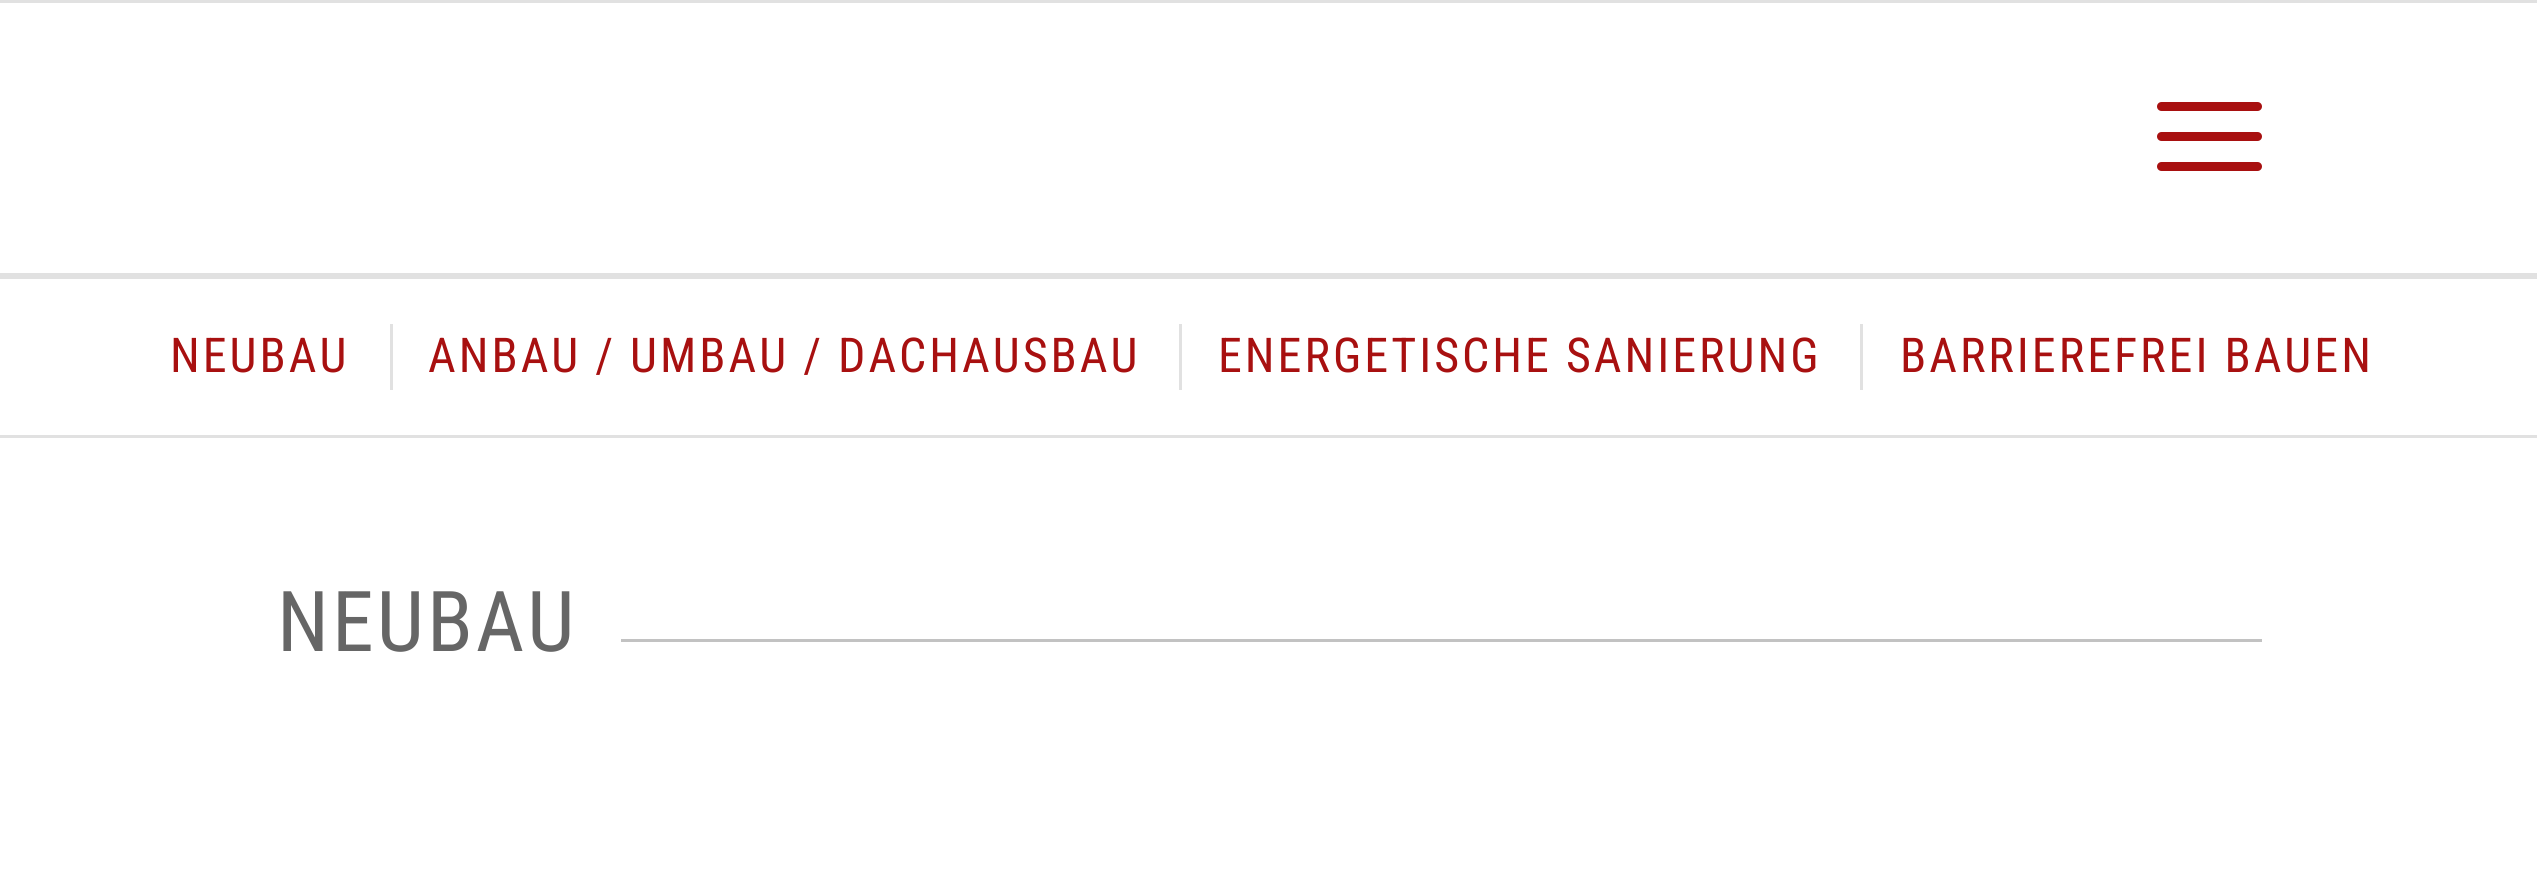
import math
import cairo


def write_spaced(ctx, x, y, s, letter, word):
	ctx.move_to(x, y)
	for ch in s:
		ctx.show_text(ch)
		ctx.rel_move_to(letter + word * (ch == ' '), 0)

def round_path(ctx, x, y, w, h, r):
	ctx.new_sub_path()
	for i, (u, v) in enumerate([(x + w - r, y + h - r), (x + r, y + h - r), (x + r, y + r), (x + w - r, y + r)]):
		ctx.arc(u, v, r, i * math.pi / 2, (i + 1) * math.pi / 2)
	ctx.close_path()

def draw(ctx):
	ctx.set_source_rgb(1, 1, 1)
	ctx.paint()
	ctx.set_source_rgb(0.882, 0.882, 0.882)
	ctx.rectangle(0, 0, 2537, 3)
	ctx.fill()
	ctx.set_source_rgb(0.659, 0.063, 0.063)
	round_path(ctx, 2157, 132, 105, 9, 4.5)
	ctx.fill()
	round_path(ctx, 2157, 102, 105, 9, 4.5)
	ctx.fill()
	round_path(ctx, 2157, 162, 105, 9, 4.5)
	ctx.fill()
	ctx.set_source_rgb(0.882, 0.882, 0.882)
	ctx.rectangle(0, 273, 2537, 6)
	ctx.fill()
	ctx.rectangle(0, 435, 2537, 3)
	ctx.fill()
	ctx.select_font_face('Roboto Condensed')
	ctx.set_font_size(48)
	ctx.set_source_rgb(0.659, 0.063, 0.063)
	write_spaced(ctx, 170, 372, 'NEUBAU', 3, 0)
	ctx.set_source_rgb(0.882, 0.882, 0.882)
	ctx.rectangle(390, 324, 3, 66)
	ctx.fill()
	ctx.set_source_rgb(0.659, 0.063, 0.063)
	write_spaced(ctx, 428, 372, 'ANBAU / UMBAU / DACHAUSBAU', 3, 0)
	ctx.set_source_rgb(0.882, 0.882, 0.882)
	ctx.rectangle(1179, 324, 3, 66)
	ctx.fill()
	ctx.set_source_rgb(0.659, 0.063, 0.063)
	write_spaced(ctx, 1218, 372, 'ENERGETISCHE SANIERUNG', 3, 0)
	ctx.set_source_rgb(0.882, 0.882, 0.882)
	ctx.rectangle(1860, 324, 3, 66)
	ctx.fill()
	ctx.set_source_rgb(0.659, 0.063, 0.063)
	write_spaced(ctx, 1900, 372, 'BARRIEREFREI BAUEN', 3, 0)
	ctx.set_font_size(84)
	ctx.set_source_rgb(0.4, 0.4, 0.4)
	write_spaced(ctx, 277, 651, 'NEUBAU', 3, 0)
	ctx.set_source_rgb(0.761, 0.761, 0.761)
	ctx.rectangle(621, 639, 1641, 3)
	ctx.fill()


surface = cairo.ImageSurface(cairo.FORMAT_RGB24, 2537, 880)
ctx = cairo.Context(surface)
options = cairo.FontOptions()
options.set_hint_metrics(cairo.HINT_METRICS_OFF)
options.set_hint_style(cairo.HINT_STYLE_NONE)
ctx.set_font_options(options)
ctx.set_miter_limit(4)
draw(ctx)
surface.write_to_png('image.png')
